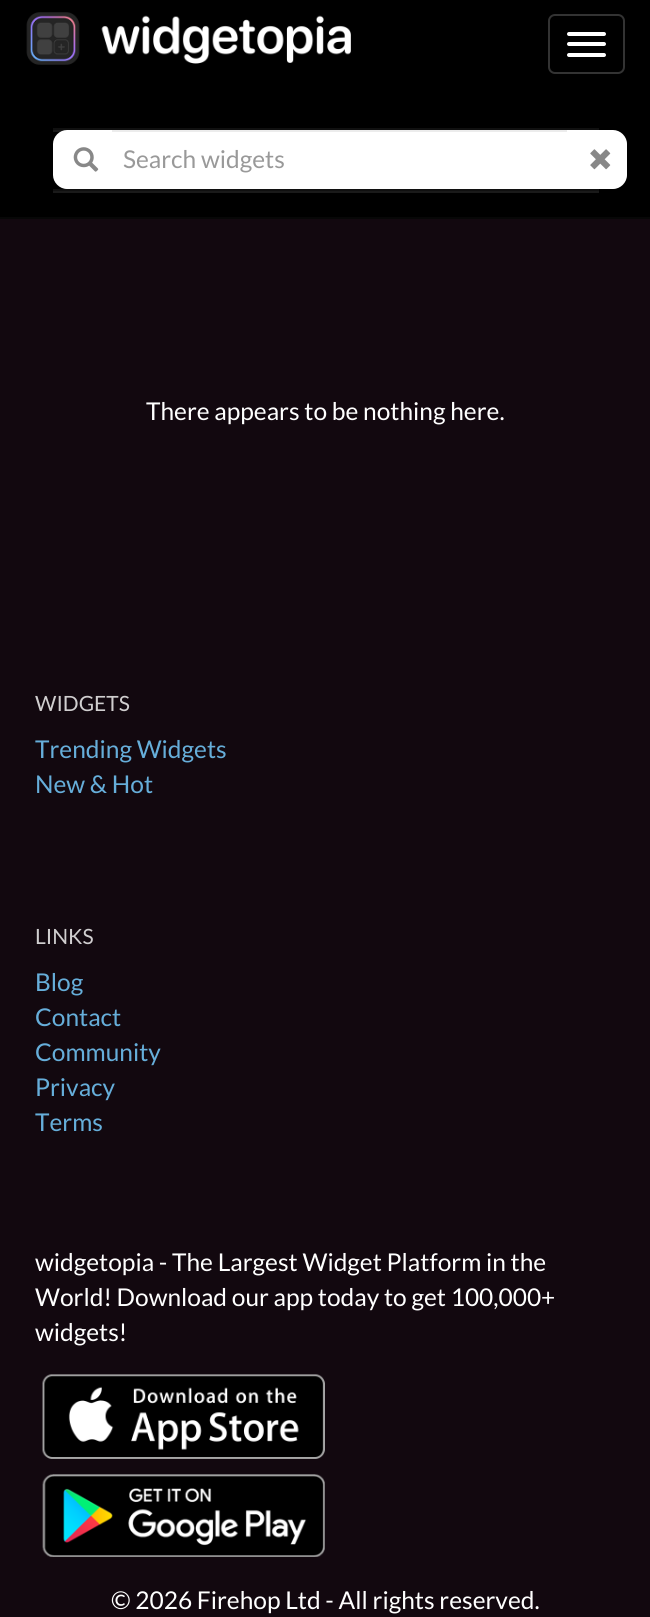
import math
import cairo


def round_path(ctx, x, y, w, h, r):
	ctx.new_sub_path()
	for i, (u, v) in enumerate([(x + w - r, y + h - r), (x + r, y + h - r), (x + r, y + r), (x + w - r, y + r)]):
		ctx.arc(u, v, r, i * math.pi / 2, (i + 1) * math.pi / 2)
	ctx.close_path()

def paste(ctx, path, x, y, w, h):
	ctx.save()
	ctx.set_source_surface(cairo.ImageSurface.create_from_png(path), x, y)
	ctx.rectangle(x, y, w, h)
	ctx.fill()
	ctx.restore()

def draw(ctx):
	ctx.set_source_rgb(0.071, 0.035, 0.059)
	ctx.paint()
	ctx.set_source_rgb(0, 0, 0)
	ctx.rectangle(0, 0, 650, 217)
	ctx.fill()
	ctx.set_source_rgb(0.031, 0.031, 0.031)
	ctx.rectangle(0, 217, 650, 2)
	ctx.fill()
	paste(ctx, 'media/1.png', 26, 12, 325, 53)
	round_path(ctx, 549, 15, 75, 58, 6)
	ctx.set_source_rgb(0.2, 0.2, 0.2)
	ctx.stroke()
	ctx.set_source_rgb(1, 1, 1)
	round_path(ctx, 567, 32, 39, 4, 2)
	ctx.fill()
	round_path(ctx, 567, 42, 39, 4, 2)
	ctx.fill()
	round_path(ctx, 567, 53, 39, 4, 2)
	ctx.fill()
	ctx.set_source_rgb(0.102, 0.102, 0.102)
	ctx.new_path()
	ctx.move_to(53, 191)
	ctx.line_to(53, 193)
	ctx.line_to(599, 193)
	ctx.line_to(599, 130)
	ctx.line_to(598, 130)
	ctx.line_to(598, 191)
	ctx.close_path()
	ctx.fill()
	ctx.set_source_rgba(1, 1, 1, 0.1)
	ctx.rectangle(53, 130, 14, 2)
	ctx.fill()
	ctx.set_source_rgb(0.063, 0.063, 0.063)
	ctx.rectangle(53, 128, 546, 2)
	ctx.rectangle(53, 189, 546, 2)
	ctx.fill()
	ctx.set_source_rgb(1, 1, 1)
	ctx.new_path()
	ctx.move_to(67, 130)
	ctx.line_to(112, 130)
	ctx.line_to(112, 189)
	ctx.line_to(67, 189)
	ctx.curve_to(59.5, 189, 53, 182.5, 53, 175)
	ctx.line_to(53, 144)
	ctx.curve_to(53, 136.5, 59.5, 130, 67, 130)
	ctx.close_path()
	ctx.fill()
	paste(ctx, 'media/2.png', 73, 147, 26, 25)
	ctx.rectangle(112, 132, 455, 57)
	ctx.fill()
	ctx.set_source_rgb(0.925, 0.925, 0.925)
	ctx.rectangle(112, 130, 455, 2)
	ctx.fill()
	ctx.select_font_face('Lato')
	ctx.set_font_size(24.5)
	ctx.set_source_rgb(0.6, 0.6, 0.6)
	ctx.move_to(123, 168)
	ctx.show_text('Search widgets')
	ctx.set_source_rgb(1, 1, 1)
	ctx.new_path()
	ctx.move_to(567, 130)
	ctx.line_to(613, 130)
	ctx.curve_to(620.5, 130, 627, 136.5, 627, 144)
	ctx.line_to(627, 175)
	ctx.curve_to(627, 182.5, 620.5, 189, 613, 189)
	ctx.line_to(567, 189)
	ctx.close_path()
	ctx.fill()
	paste(ctx, 'media/3.png', 590, 149, 21, 21)
	ctx.move_to(146, 420)
	ctx.show_text('There appears to be nothing here.')
	ctx.set_font_size(21)
	ctx.set_source_rgb(0.816, 0.808, 0.812)
	ctx.move_to(35, 711)
	ctx.show_text('WIDGETS')
	ctx.set_font_size(24.5)
	ctx.set_source_rgb(0.4, 0.682, 0.855)
	ctx.move_to(35, 758)
	ctx.show_text('Trending Widgets')
	ctx.move_to(35, 793)
	ctx.show_text('New & Hot')
	ctx.set_font_size(21)
	ctx.set_source_rgb(0.816, 0.808, 0.812)
	ctx.move_to(35, 944)
	ctx.show_text('LINKS')
	ctx.set_font_size(24.5)
	ctx.set_source_rgb(0.4, 0.682, 0.855)
	for x, y, s in [
		(35, 991, 'Blog'),
		(35, 1026, 'Contact'),
		(35, 1061, 'Community'),
		(35, 1096, 'Privacy'),
		(35, 1131, 'Terms'),
	]:
		ctx.move_to(x, y)
		ctx.show_text(s)
	ctx.set_source_rgb(1, 1, 1)
	for x, y, s in [
		(35, 1271, 'widgetopia - The Largest Widget Platform in the'),
		(35, 1306, 'World! Download our app today to get 100,000+'),
		(35, 1341, 'widgets!'),
	]:
		ctx.move_to(x, y)
		ctx.show_text(s)
	paste(ctx, 'media/4.png', 42, 1374, 283, 85)
	paste(ctx, 'media/5.png', 42, 1474, 283, 83)
	ctx.move_to(111, 1609)
	ctx.show_text('© 2026 Firehop Ltd - All rights reserved.')


surface = cairo.ImageSurface(cairo.FORMAT_RGB24, 650, 1617)
ctx = cairo.Context(surface)
options = cairo.FontOptions()
options.set_hint_metrics(cairo.HINT_METRICS_OFF)
options.set_hint_style(cairo.HINT_STYLE_NONE)
ctx.set_font_options(options)
ctx.set_miter_limit(4)
draw(ctx)
surface.write_to_png('image.png')
